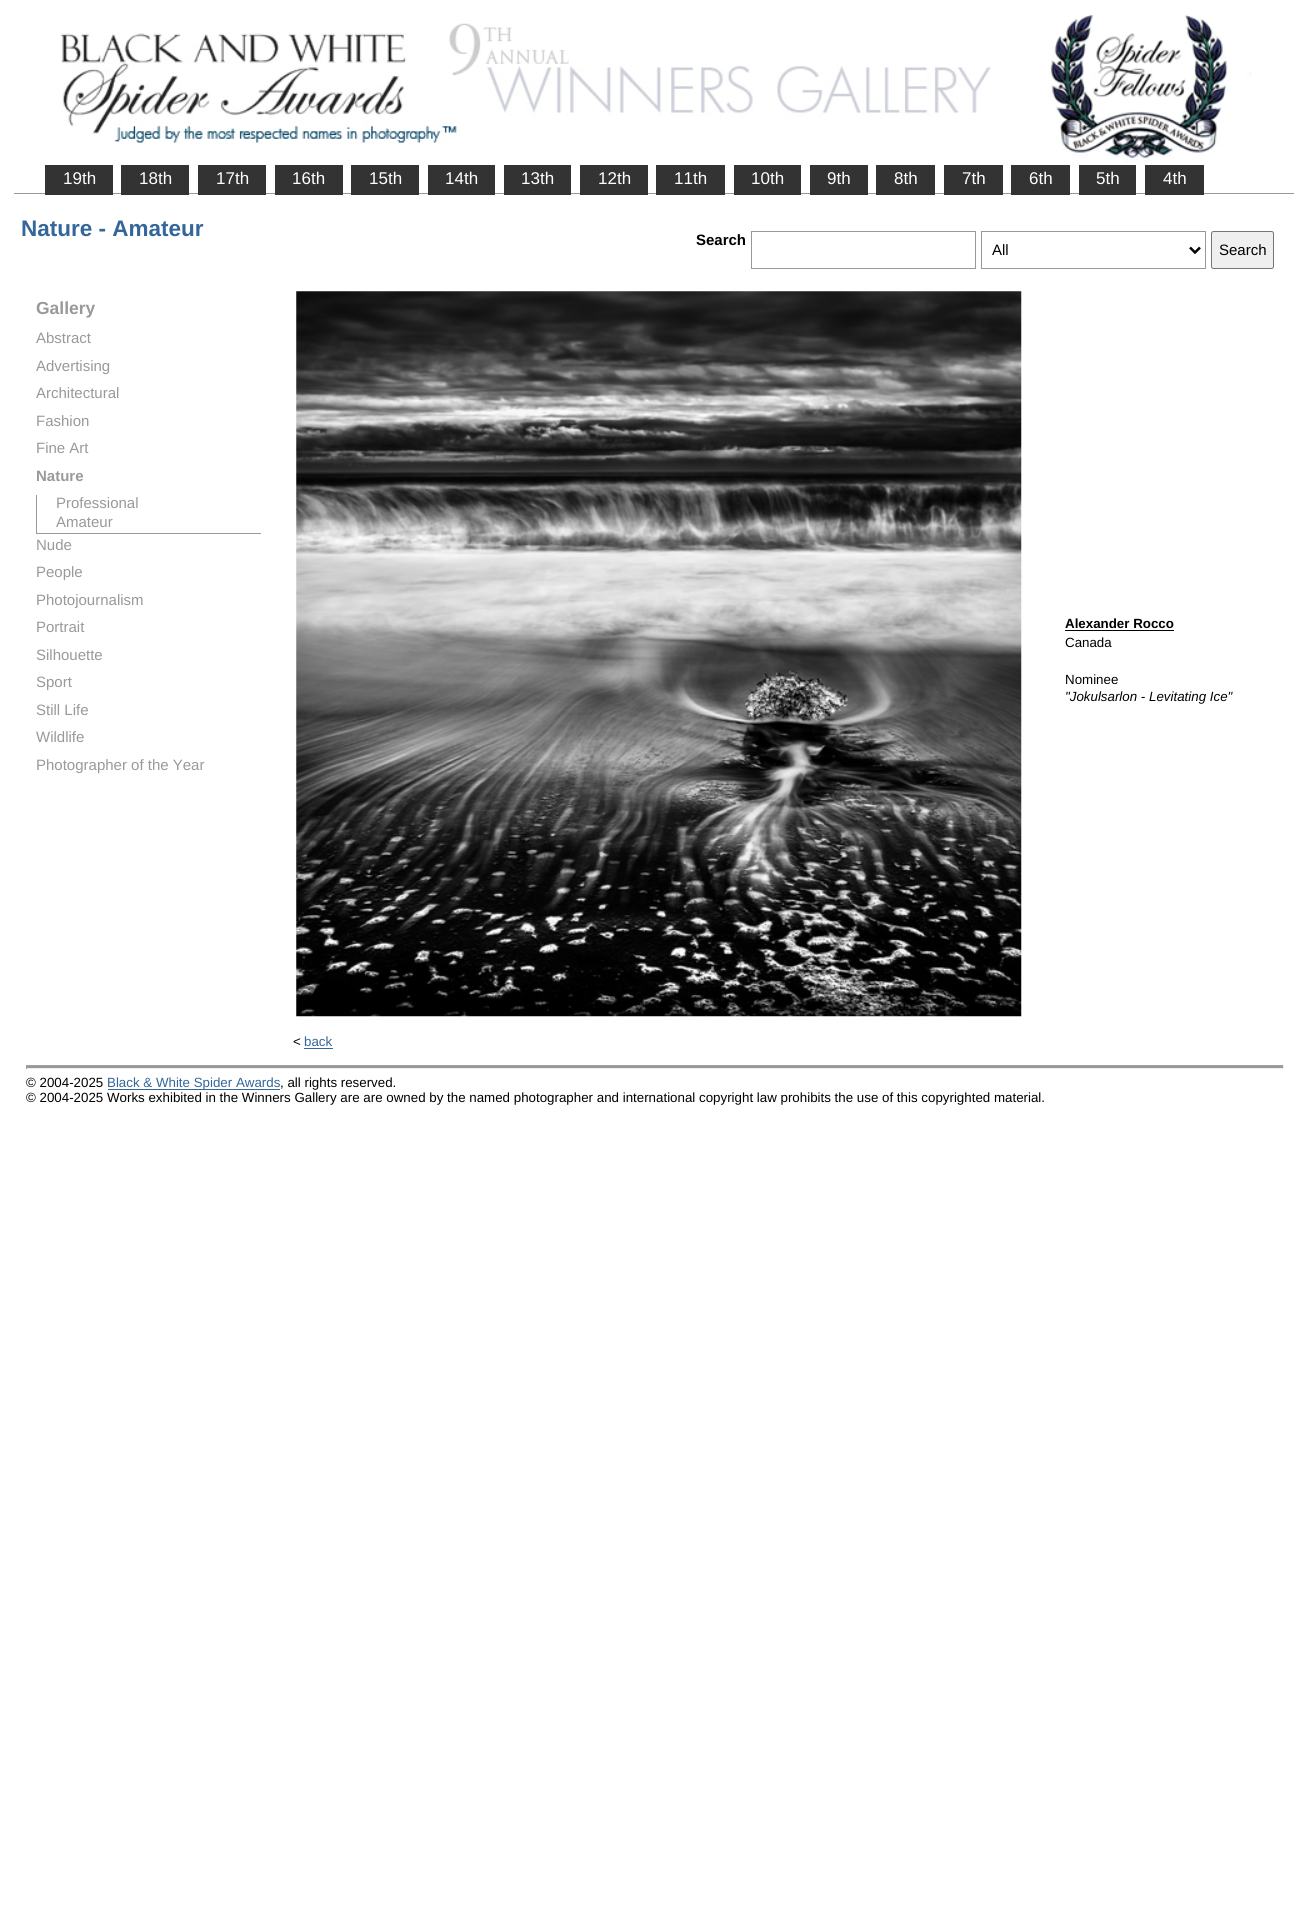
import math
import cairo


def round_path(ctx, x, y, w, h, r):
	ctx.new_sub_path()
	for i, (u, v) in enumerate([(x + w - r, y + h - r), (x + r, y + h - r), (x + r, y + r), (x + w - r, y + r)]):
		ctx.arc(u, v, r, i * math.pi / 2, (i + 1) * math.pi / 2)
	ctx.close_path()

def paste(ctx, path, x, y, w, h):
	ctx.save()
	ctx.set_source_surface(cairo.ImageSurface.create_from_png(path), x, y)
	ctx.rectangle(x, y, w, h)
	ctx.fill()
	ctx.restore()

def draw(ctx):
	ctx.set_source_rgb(1, 1, 1)
	ctx.paint()
	paste(ctx, 'media/1.png', 61, 14, 1190, 149)
	ctx.set_source_rgb(0.6, 0.6, 0.6)
	ctx.rectangle(14, 193, 1280, 1)
	ctx.fill()
	ctx.set_source_rgb(0.2, 0.2, 0.2)
	ctx.rectangle(45, 165, 68, 30)
	ctx.fill()
	ctx.select_font_face('Liberation Sans')
	ctx.set_font_size(17)
	ctx.set_source_rgb(1, 1, 1)
	ctx.move_to(63, 184)
	ctx.show_text('19th')
	ctx.set_source_rgb(0.2, 0.2, 0.2)
	ctx.rectangle(121, 165, 68, 30)
	ctx.fill()
	ctx.set_source_rgb(1, 1, 1)
	ctx.move_to(139, 184)
	ctx.show_text('18th')
	ctx.set_source_rgb(0.2, 0.2, 0.2)
	ctx.rectangle(198, 165, 68, 30)
	ctx.fill()
	ctx.set_source_rgb(1, 1, 1)
	ctx.move_to(216, 184)
	ctx.show_text('17th')
	ctx.set_source_rgb(0.2, 0.2, 0.2)
	ctx.rectangle(275, 165, 68, 30)
	ctx.fill()
	ctx.set_source_rgb(1, 1, 1)
	ctx.move_to(292, 184)
	ctx.show_text('16th')
	ctx.set_source_rgb(0.2, 0.2, 0.2)
	ctx.rectangle(351, 165, 68, 30)
	ctx.fill()
	ctx.set_source_rgb(1, 1, 1)
	ctx.move_to(369, 184)
	ctx.show_text('15th')
	ctx.set_source_rgb(0.2, 0.2, 0.2)
	ctx.rectangle(428, 165, 67, 30)
	ctx.fill()
	ctx.set_source_rgb(1, 1, 1)
	ctx.move_to(445, 184)
	ctx.show_text('14th')
	ctx.set_source_rgb(0.2, 0.2, 0.2)
	ctx.rectangle(504, 165, 67, 30)
	ctx.fill()
	ctx.set_source_rgb(1, 1, 1)
	ctx.move_to(521, 184)
	ctx.show_text('13th')
	ctx.set_source_rgb(0.2, 0.2, 0.2)
	ctx.rectangle(580, 165, 68, 30)
	ctx.fill()
	ctx.set_source_rgb(1, 1, 1)
	ctx.move_to(598, 184)
	ctx.show_text('12th')
	ctx.set_source_rgb(0.2, 0.2, 0.2)
	ctx.rectangle(656, 165, 69, 30)
	ctx.fill()
	ctx.set_source_rgb(1, 1, 1)
	ctx.move_to(674, 184)
	ctx.show_text('11th')
	ctx.set_source_rgb(0.2, 0.2, 0.2)
	ctx.rectangle(734, 165, 67, 30)
	ctx.fill()
	ctx.set_source_rgb(1, 1, 1)
	ctx.move_to(751, 184)
	ctx.show_text('10th')
	ctx.set_source_rgb(0.2, 0.2, 0.2)
	ctx.rectangle(810, 165, 58, 30)
	ctx.fill()
	ctx.set_source_rgb(1, 1, 1)
	ctx.move_to(827, 184)
	ctx.show_text('9th')
	ctx.set_source_rgb(0.2, 0.2, 0.2)
	ctx.rectangle(876, 165, 59, 30)
	ctx.fill()
	ctx.set_source_rgb(1, 1, 1)
	ctx.move_to(894, 184)
	ctx.show_text('8th')
	ctx.set_source_rgb(0.2, 0.2, 0.2)
	ctx.rectangle(944, 165, 59, 30)
	ctx.fill()
	ctx.set_source_rgb(1, 1, 1)
	ctx.move_to(962, 184)
	ctx.show_text('7th')
	ctx.set_source_rgb(0.2, 0.2, 0.2)
	ctx.rectangle(1011, 165, 59, 30)
	ctx.fill()
	ctx.set_source_rgb(1, 1, 1)
	ctx.move_to(1029, 184)
	ctx.show_text('6th')
	ctx.set_source_rgb(0.2, 0.2, 0.2)
	ctx.rectangle(1079, 165, 57, 30)
	ctx.fill()
	ctx.set_source_rgb(1, 1, 1)
	ctx.move_to(1096, 184)
	ctx.show_text('5th')
	ctx.set_source_rgb(0.2, 0.2, 0.2)
	ctx.rectangle(1145, 165, 59, 30)
	ctx.fill()
	ctx.set_source_rgb(1, 1, 1)
	ctx.move_to(1163, 184)
	ctx.show_text('4th')
	ctx.select_font_face('Liberation Sans', cairo.FONT_SLANT_NORMAL, cairo.FONT_WEIGHT_BOLD)
	ctx.set_font_size(22.5)
	ctx.set_source_rgb(0.2, 0.4, 0.6)
	ctx.move_to(21, 236)
	ctx.show_text('Nature - Amateur')
	ctx.set_font_size(15)
	ctx.set_source_rgb(0, 0, 0)
	ctx.move_to(696, 245)
	ctx.show_text('Search')
	ctx.rectangle(751.5, 231.5, 224, 37)
	ctx.set_source_rgb(0.6, 0.6, 0.6)
	ctx.set_line_width(1)
	ctx.stroke()
	ctx.rectangle(981.5, 231.5, 224, 37)
	ctx.stroke()
	ctx.new_path()
	ctx.move_to(1190, 247.5)
	ctx.line_to(1195, 252.5)
	ctx.line_to(1200, 247.5)
	ctx.set_source_rgb(0, 0, 0)
	ctx.set_line_width(2.5)
	ctx.stroke()
	ctx.select_font_face('Liberation Sans')
	ctx.move_to(992, 255)
	ctx.show_text('All')
	ctx.set_source_rgb(0.937, 0.937, 0.937)
	round_path(ctx, 1211.5, 231.5, 62, 37, 2)
	ctx.fill_preserve()
	ctx.set_source_rgb(0.463, 0.463, 0.463)
	ctx.set_line_width(1)
	ctx.stroke()
	ctx.set_source_rgb(0, 0, 0)
	ctx.move_to(1219, 255)
	ctx.show_text('Search')
	ctx.select_font_face('Liberation Sans', cairo.FONT_SLANT_NORMAL, cairo.FONT_WEIGHT_BOLD)
	ctx.set_font_size(17.5)
	ctx.set_source_rgb(0.6, 0.6, 0.6)
	ctx.move_to(36, 314)
	ctx.show_text('Gallery')
	ctx.select_font_face('Liberation Sans')
	ctx.set_font_size(15)
	for x, y, s in [
		(36, 343, 'Abstract'),
		(36, 371, 'Advertising'),
		(36, 398, 'Architectural'),
		(36, 426, 'Fashion'),
		(36, 453, 'Fine Art'),
	]:
		ctx.move_to(x, y)
		ctx.show_text(s)
	ctx.select_font_face('Liberation Sans', cairo.FONT_SLANT_NORMAL, cairo.FONT_WEIGHT_BOLD)
	ctx.move_to(36, 481)
	ctx.show_text('Nature')
	ctx.rectangle(36, 533, 225, 1)
	ctx.fill()
	ctx.rectangle(36, 495, 1, 39)
	ctx.fill()
	ctx.select_font_face('Liberation Sans')
	for x, y, s in [
		(56, 508, 'Professional'),
		(56, 527, 'Amateur'),
		(36, 550, 'Nude'),
		(36, 577, 'People'),
		(36, 605, 'Photojournalism'),
		(36, 632, 'Portrait'),
		(36, 660, 'Silhouette'),
		(36, 687, 'Sport'),
		(36, 715, 'Still Life'),
		(36, 742, 'Wildlife'),
		(36, 770, 'Photographer of the Year'),
	]:
		ctx.move_to(x, y)
		ctx.show_text(s)
	paste(ctx, 'media/2.png', 296, 291, 726, 726)
	ctx.select_font_face('Liberation Sans', cairo.FONT_SLANT_NORMAL, cairo.FONT_WEIGHT_BOLD)
	ctx.set_font_size(13.33)
	ctx.set_source_rgb(0, 0, 0)
	ctx.move_to(1065, 628)
	ctx.show_text('Alexander Rocco')
	ctx.rectangle(1065, 630, 109, 1)
	ctx.fill()
	ctx.select_font_face('Liberation Sans')
	ctx.move_to(1065, 647)
	ctx.show_text('Canada')
	ctx.move_to(1065, 684)
	ctx.show_text('Nominee')
	ctx.select_font_face('Liberation Sans', cairo.FONT_SLANT_ITALIC)
	ctx.move_to(1065, 701)
	ctx.show_text('"Jokulsarlon - Levitating Ice"')
	ctx.select_font_face('Liberation Sans')
	ctx.move_to(293, 1046)
	ctx.show_text('<')
	ctx.set_source_rgb(0.2, 0.4, 0.6)
	ctx.move_to(304, 1046)
	ctx.show_text('back')
	ctx.rectangle(304, 1048, 29, 1)
	ctx.fill()
	ctx.set_source_rgb(0.6, 0.6, 0.6)
	ctx.rectangle(26, 1066, 1258, 2)
	ctx.fill()
	ctx.set_source_rgb(0.624, 0.624, 0.624)
	ctx.rectangle(26, 1065, 1258, 1)
	ctx.fill()
	ctx.set_source_rgb(0.933, 0.933, 0.933)
	ctx.rectangle(1283, 1065, 1, 4)
	ctx.rectangle(26, 1068, 1258, 1)
	ctx.fill()
	ctx.set_source_rgb(0.624, 0.624, 0.624)
	ctx.rectangle(26, 1065, 1, 4)
	ctx.fill()
	ctx.set_source_rgb(0, 0, 0)
	ctx.move_to(26, 1087)
	ctx.show_text('© 2004-2025')
	ctx.set_source_rgb(0.2, 0.4, 0.6)
	ctx.rectangle(108, 1089, 172, 1)
	ctx.fill()
	ctx.move_to(107, 1087)
	ctx.show_text('Black & White Spider Awards')
	ctx.set_source_rgb(0, 0, 0)
	ctx.move_to(280, 1087)
	ctx.show_text(', all rights reserved.')
	ctx.move_to(26, 1102)
	ctx.show_text('© 2004-2025 Works exhibited in the Winners Gallery are are owned by the named photographer and international copyright law prohibits the use of this copyrighted material.')


surface = cairo.ImageSurface(cairo.FORMAT_RGB24, 1307, 1911)
ctx = cairo.Context(surface)
options = cairo.FontOptions()
options.set_hint_metrics(cairo.HINT_METRICS_OFF)
options.set_hint_style(cairo.HINT_STYLE_NONE)
ctx.set_font_options(options)
ctx.set_miter_limit(4)
draw(ctx)
surface.write_to_png('image.png')
